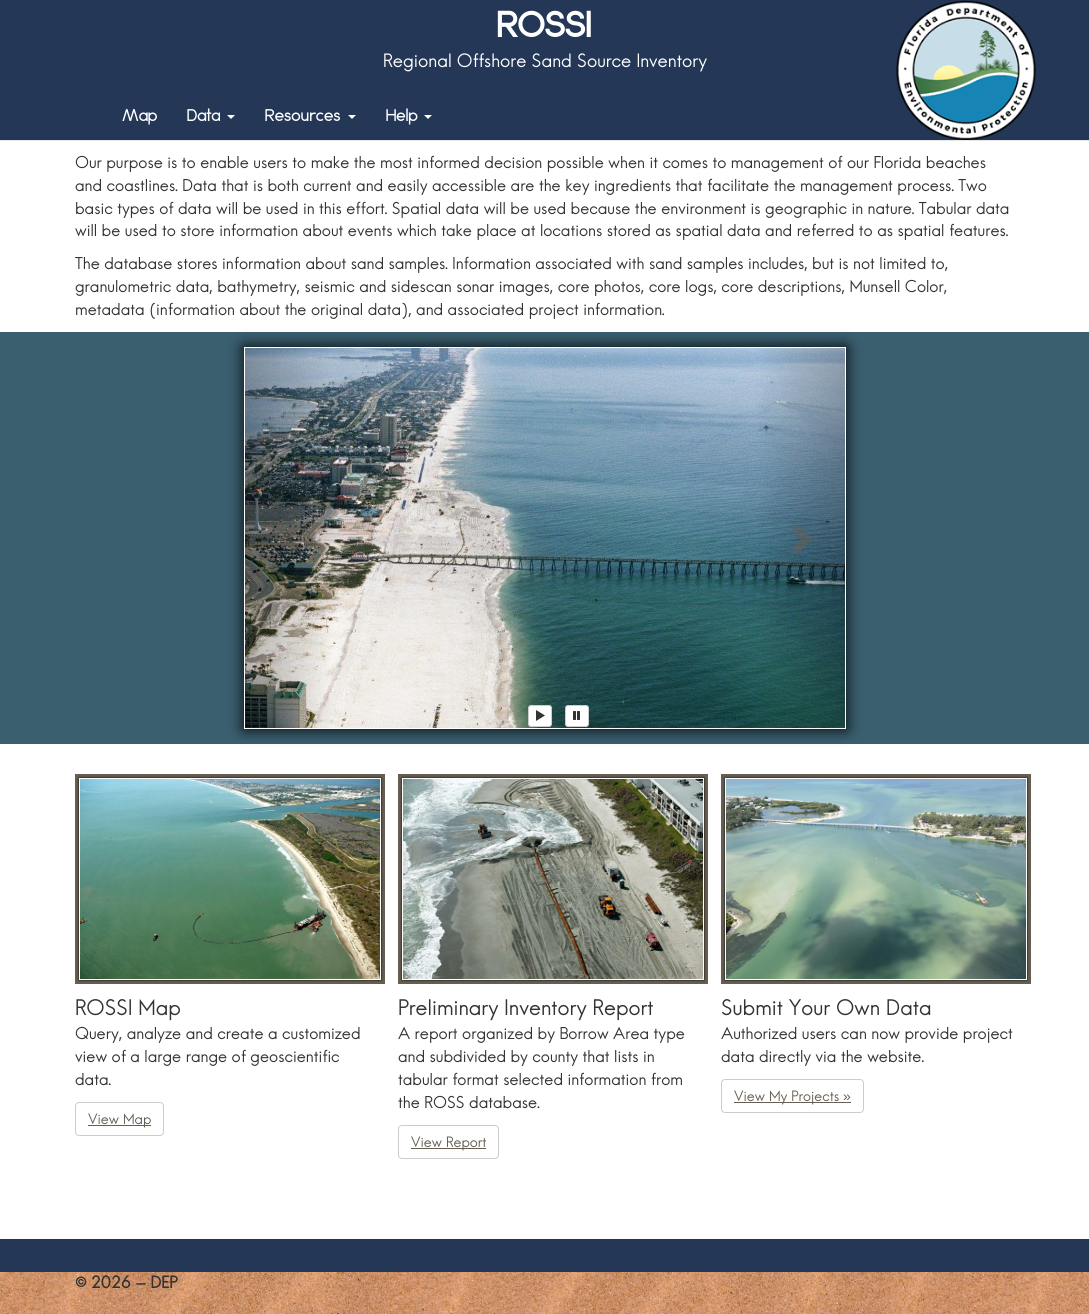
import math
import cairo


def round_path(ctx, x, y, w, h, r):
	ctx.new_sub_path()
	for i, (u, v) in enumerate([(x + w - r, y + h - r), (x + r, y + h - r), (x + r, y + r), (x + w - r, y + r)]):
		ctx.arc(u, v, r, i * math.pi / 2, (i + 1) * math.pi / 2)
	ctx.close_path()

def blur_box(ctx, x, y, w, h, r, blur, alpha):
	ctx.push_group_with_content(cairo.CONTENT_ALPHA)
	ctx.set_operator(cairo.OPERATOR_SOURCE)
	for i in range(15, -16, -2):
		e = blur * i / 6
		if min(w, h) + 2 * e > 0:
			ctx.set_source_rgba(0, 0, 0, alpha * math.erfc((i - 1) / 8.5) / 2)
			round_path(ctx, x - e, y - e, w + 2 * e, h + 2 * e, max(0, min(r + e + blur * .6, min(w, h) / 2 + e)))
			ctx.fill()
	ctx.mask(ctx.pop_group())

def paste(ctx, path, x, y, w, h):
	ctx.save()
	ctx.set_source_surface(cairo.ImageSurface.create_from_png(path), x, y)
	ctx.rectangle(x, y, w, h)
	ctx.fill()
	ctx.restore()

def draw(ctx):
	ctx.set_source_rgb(1, 1, 1)
	ctx.paint()
	ctx.set_source_rgb(0.141, 0.216, 0.341)
	ctx.rectangle(0, 0, 1089, 140)
	ctx.fill()
	ctx.set_source_rgb(0.906, 0.906, 0.906)
	ctx.rectangle(0, 140, 1089, 1)
	ctx.fill()
	ctx.select_font_face('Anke', cairo.FONT_SLANT_NORMAL, cairo.FONT_WEIGHT_BOLD)
	ctx.set_font_size(34)
	ctx.set_source_rgb(1, 1, 1)
	ctx.move_to(497, 37)
	ctx.show_text('ROSSI')
	ctx.select_font_face('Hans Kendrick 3')
	ctx.set_font_size(18)
	ctx.move_to(383, 67)
	ctx.show_text('Regional Offshore Sand Source Inventory')
	paste(ctx, 'media/1.png', 896, 0, 140, 140)
	ctx.select_font_face('Anke')
	ctx.set_font_size(16)
	ctx.move_to(122, 121)
	ctx.show_text('Map')
	ctx.move_to(187, 121)
	ctx.show_text('Data')
	ctx.new_path()
	ctx.move_to(227, 115)
	ctx.line_to(235, 115)
	ctx.line_to(231, 119)
	ctx.close_path()
	ctx.fill()
	ctx.move_to(265, 121)
	ctx.show_text('Resources')
	ctx.new_path()
	ctx.move_to(348, 115)
	ctx.line_to(356, 115)
	ctx.line_to(352, 119)
	ctx.close_path()
	ctx.fill()
	ctx.move_to(386, 121)
	ctx.show_text('Help')
	ctx.new_path()
	ctx.move_to(424, 115)
	ctx.line_to(432, 115)
	ctx.line_to(428, 119)
	ctx.close_path()
	ctx.fill()
	ctx.select_font_face('Hans Kendrick 3')
	ctx.set_source_rgb(0.2, 0.2, 0.2)
	for x, y, s in [
		(75, 168, 'Our purpose is to enable users to make the most informed decision possible when it comes to management of our Florida beaches'),
		(75, 191, 'and coastlines. Data that is both current and easily accessible are the key ingredients that facilitate the management process. Two'),
		(75, 214, 'basic types of data will be used in this effort. Spatial data will be used because the environment is geographic in nature. Tabular data'),
		(75, 236, 'will be used to store information about events which take place at locations stored as spatial data and referred to as spatial features.'),
		(75, 269, 'The database stores information about sand samples. Information associated with sand samples includes, but is not limited to,'),
		(75, 292, 'granulometric data, bathymetry, seismic and sidescan sonar images, core photos, core logs, core descriptions, Munsell Color,'),
		(75, 315, 'metadata (information about the original data), and associated project information.'),
	]:
		ctx.move_to(x, y)
		ctx.show_text(s)
	ctx.set_source_rgb(0.227, 0.373, 0.435)
	ctx.rectangle(0, 332, 1089, 412)
	ctx.fill()
	ctx.set_source_rgb(0, 0, 0)
	blur_box(ctx, 244, 347, 602, 382, 0, 7.5, 1)
	ctx.rectangle(244.5, 347.5, 601, 381)
	ctx.set_source_rgb(1, 1, 1)
	ctx.set_line_width(1)
	ctx.stroke()
	paste(ctx, 'media/2.png', 245, 348, 600, 380)
	ctx.set_source_rgba(0.4, 0.369, 0.322, 0.5)
	ctx.new_path()
	ctx.move_to(278.5, 538)
	ctx.line_to(293.5, 553)
	ctx.line_to(299.5, 547)
	ctx.line_to(290.5, 538)
	ctx.line_to(299.5, 529)
	ctx.line_to(293.5, 523)
	ctx.close_path()
	ctx.fill()
	ctx.new_path()
	ctx.move_to(792, 548)
	ctx.line_to(800.5, 539.5)
	ctx.line_to(792, 530.5)
	ctx.line_to(798, 524.5)
	ctx.line_to(812.5, 539.5)
	ctx.line_to(798, 554)
	ctx.close_path()
	ctx.fill()
	ctx.set_source_rgb(1, 1, 1)
	round_path(ctx, 528.5, 705.5, 23, 21, 2.5)
	ctx.fill_preserve()
	ctx.set_source_rgb(0.8, 0.8, 0.8)
	ctx.stroke()
	ctx.set_source_rgb(0.2, 0.2, 0.2)
	ctx.new_path()
	ctx.move_to(536, 721)
	ctx.line_to(545, 715.5)
	ctx.line_to(536, 710)
	ctx.close_path()
	ctx.fill()
	ctx.set_source_rgb(1, 1, 1)
	round_path(ctx, 565.5, 705.5, 23, 21, 2.5)
	ctx.fill_preserve()
	ctx.set_source_rgb(0.8, 0.8, 0.8)
	ctx.stroke()
	paste(ctx, 'media/3.png', 573, 711, 7, 9)
	ctx.set_source_rgb(0.4, 0.369, 0.322)
	ctx.rectangle(75, 774, 310, 210)
	ctx.fill()
	ctx.set_source_rgb(0, 0, 0)
	blur_box(ctx, 79, 778, 302, 202, 0, 1, 1)
	ctx.rectangle(79.5, 778.5, 301, 201)
	ctx.set_source_rgb(1, 1, 1)
	ctx.stroke()
	paste(ctx, 'media/4.png', 80, 779, 300, 200)
	ctx.set_font_size(21)
	ctx.set_source_rgb(0.2, 0.2, 0.2)
	ctx.move_to(75, 1015)
	ctx.show_text('ROSSI Map')
	ctx.set_font_size(16)
	for x, y, s in [
		(75, 1039, 'Query, analyze and create a customized'),
		(75, 1062, 'view of a large range of geoscientific'),
		(75, 1085, 'data.'),
	]:
		ctx.move_to(x, y)
		ctx.show_text(s)
	round_path(ctx, 75.5, 1102.5, 88, 33, 3.5)
	ctx.set_source_rgb(0.8, 0.8, 0.8)
	ctx.stroke()
	ctx.set_source_rgb(0.4, 0.369, 0.322)
	ctx.rectangle(88, 1125, 63, 1)
	ctx.fill()
	ctx.set_font_size(14)
	ctx.move_to(88, 1124)
	ctx.show_text('View Map')
	ctx.rectangle(398, 774, 310, 210)
	ctx.fill()
	ctx.set_source_rgb(0, 0, 0)
	blur_box(ctx, 402, 778, 302, 202, 0, 1, 1)
	ctx.rectangle(402.5, 778.5, 301, 201)
	ctx.set_source_rgb(1, 1, 1)
	ctx.stroke()
	paste(ctx, 'media/5.png', 403, 779, 300, 200)
	ctx.set_font_size(21)
	ctx.set_source_rgb(0.2, 0.2, 0.2)
	ctx.move_to(398, 1015)
	ctx.show_text('Preliminary Inventory Report')
	ctx.set_font_size(16)
	for x, y, s in [
		(398, 1039, 'A report organized by Borrow Area type'),
		(398, 1062, 'and subdivided by county that lists in'),
		(398, 1085, 'tabular format selected information from'),
		(398, 1108, 'the ROSS database.'),
	]:
		ctx.move_to(x, y)
		ctx.show_text(s)
	round_path(ctx, 398.5, 1125.5, 100, 33, 3.5)
	ctx.set_source_rgb(0.8, 0.8, 0.8)
	ctx.stroke()
	ctx.set_source_rgb(0.4, 0.369, 0.322)
	ctx.rectangle(411, 1148, 75, 1)
	ctx.fill()
	ctx.set_font_size(14)
	ctx.move_to(411, 1147)
	ctx.show_text('View Report')
	ctx.rectangle(721, 774, 310, 210)
	ctx.fill()
	ctx.set_source_rgb(0, 0, 0)
	blur_box(ctx, 725, 778, 302, 202, 0, 1, 1)
	ctx.rectangle(725.5, 778.5, 301, 201)
	ctx.set_source_rgb(1, 1, 1)
	ctx.stroke()
	paste(ctx, 'media/6.png', 726, 779, 300, 200)
	ctx.set_font_size(21)
	ctx.set_source_rgb(0.2, 0.2, 0.2)
	ctx.move_to(721, 1015)
	ctx.show_text('Submit Your Own Data')
	ctx.set_font_size(16)
	ctx.move_to(721, 1039)
	ctx.show_text('Authorized users can now provide project')
	ctx.move_to(721, 1062)
	ctx.show_text('data directly via the website.')
	round_path(ctx, 721.5, 1079.5, 142, 33, 3.5)
	ctx.set_source_rgb(0.8, 0.8, 0.8)
	ctx.stroke()
	ctx.set_source_rgb(0.4, 0.369, 0.322)
	ctx.rectangle(734, 1102, 117, 1)
	ctx.fill()
	ctx.set_font_size(14)
	ctx.move_to(734, 1101)
	ctx.show_text('View My Projects')
	ctx.select_font_face('Liberation Sans')
	ctx.move_to(843, 1101)
	ctx.show_text('»')
	paste(ctx, 'media/7.png', 0, 1272, 1089, 42)
	ctx.set_source_rgb(0.141, 0.216, 0.341)
	ctx.rectangle(0, 1239, 1089, 33)
	ctx.fill()
	ctx.select_font_face('Hans Kendrick 3', cairo.FONT_SLANT_NORMAL, cairo.FONT_WEIGHT_BOLD)
	ctx.set_font_size(16)
	ctx.set_source_rgb(0.2, 0.2, 0.2)
	ctx.move_to(75, 1288)
	ctx.show_text('© 2026 - DEP')


surface = cairo.ImageSurface(cairo.FORMAT_RGB24, 1089, 1314)
ctx = cairo.Context(surface)
options = cairo.FontOptions()
options.set_hint_metrics(cairo.HINT_METRICS_OFF)
options.set_hint_style(cairo.HINT_STYLE_NONE)
ctx.set_font_options(options)
ctx.set_miter_limit(4)
draw(ctx)
surface.write_to_png('image.png')
